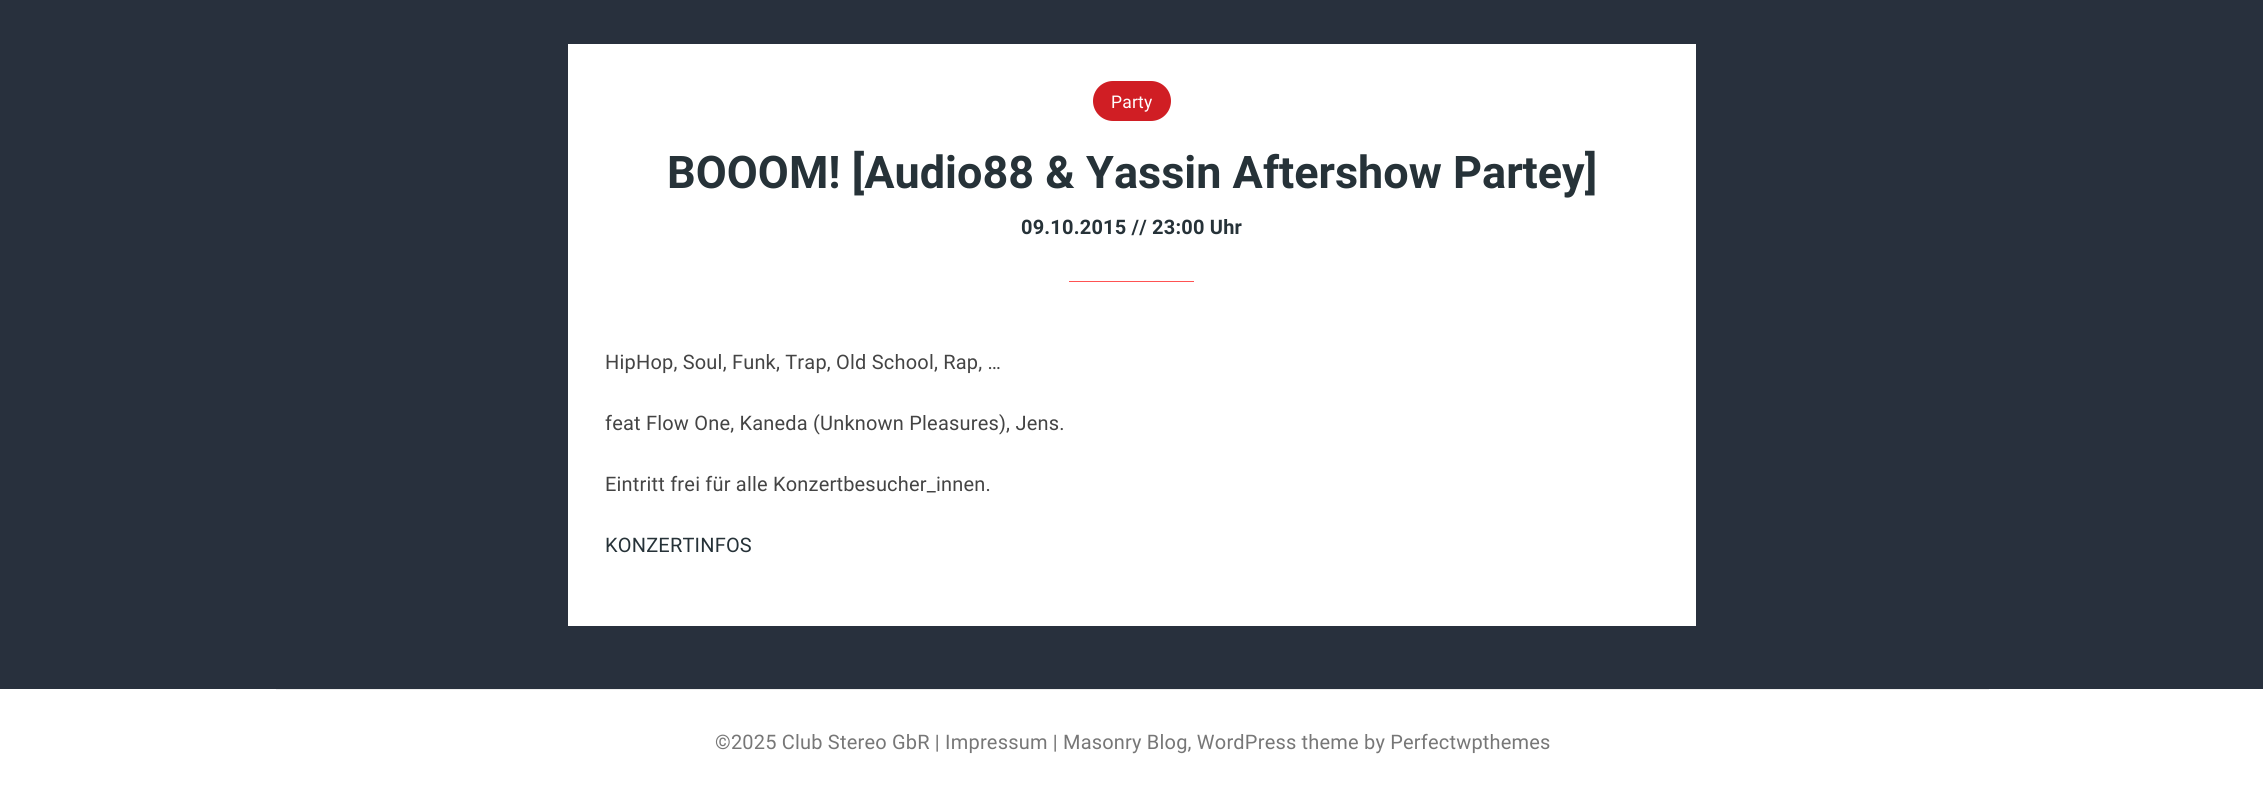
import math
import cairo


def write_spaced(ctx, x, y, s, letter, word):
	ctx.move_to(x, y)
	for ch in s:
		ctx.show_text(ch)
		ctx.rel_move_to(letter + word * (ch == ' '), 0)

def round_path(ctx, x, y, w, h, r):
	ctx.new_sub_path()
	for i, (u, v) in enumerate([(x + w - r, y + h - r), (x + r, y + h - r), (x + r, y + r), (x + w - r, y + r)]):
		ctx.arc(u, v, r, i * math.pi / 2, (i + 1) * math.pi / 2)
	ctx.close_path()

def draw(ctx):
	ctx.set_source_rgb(0.157, 0.188, 0.239)
	ctx.paint()
	ctx.set_source_rgb(1, 1, 1)
	ctx.rectangle(568, 44, 1128, 582)
	ctx.fill()
	ctx.set_source_rgb(0.816, 0.118, 0.141)
	round_path(ctx, 1093, 81, 78, 40, 20)
	ctx.fill()
	ctx.select_font_face('Roboto')
	ctx.set_font_size(17.5)
	ctx.set_source_rgb(1, 1, 1)
	write_spaced(ctx, 1111, 108, 'Party', 0.2, 0)
	ctx.select_font_face('Roboto', cairo.FONT_SLANT_NORMAL, cairo.FONT_WEIGHT_BOLD)
	ctx.set_font_size(45)
	ctx.set_source_rgb(0.149, 0.196, 0.22)
	ctx.move_to(667, 188)
	ctx.show_text('BOOOM! [Audio88 & Yassin Aftershow Partey]')
	ctx.set_font_size(20)
	write_spaced(ctx, 1021, 234, '09.10.2015 // 23:00 Uhr', 0.2, 0)
	ctx.set_source_rgb(1, 0.322, 0.322)
	ctx.rectangle(1069, 281, 125, 1)
	ctx.fill()
	ctx.select_font_face('Roboto')
	ctx.set_source_rgb(0.267, 0.267, 0.267)
	for x, y, s in [
		(605, 369, 'HipHop, Soul, Funk, Trap, Old School, Rap, …'),
		(605, 430, 'feat Flow One, Kaneda (Unknown Pleasures), Jens.'),
		(605, 491, 'Eintritt frei für alle Konzertbesucher_innen.'),
	]:
		write_spaced(ctx, x, y, s, 0.2, 0)
	ctx.set_source_rgb(0.149, 0.196, 0.22)
	write_spaced(ctx, 605, 552, 'KONZERTINFOS', 0.2, 0)
	ctx.set_source_rgb(1, 1, 1)
	ctx.rectangle(0, 689, 2263, 105)
	ctx.fill()
	ctx.set_source_rgb(0.933, 0.933, 0.933)
	ctx.rectangle(276, 689, 1713, 1)
	ctx.fill()
	ctx.set_source_rgb(0.467, 0.467, 0.467)
	write_spaced(ctx, 715, 749, '©2025 Club Stereo GbR | Impressum | Masonry Blog, WordPress theme by Perfectwpthemes', 0.2, 0)


surface = cairo.ImageSurface(cairo.FORMAT_RGB24, 2263, 794)
ctx = cairo.Context(surface)
options = cairo.FontOptions()
options.set_hint_metrics(cairo.HINT_METRICS_OFF)
options.set_hint_style(cairo.HINT_STYLE_NONE)
ctx.set_font_options(options)
ctx.set_miter_limit(4)
draw(ctx)
surface.write_to_png('image.png')
